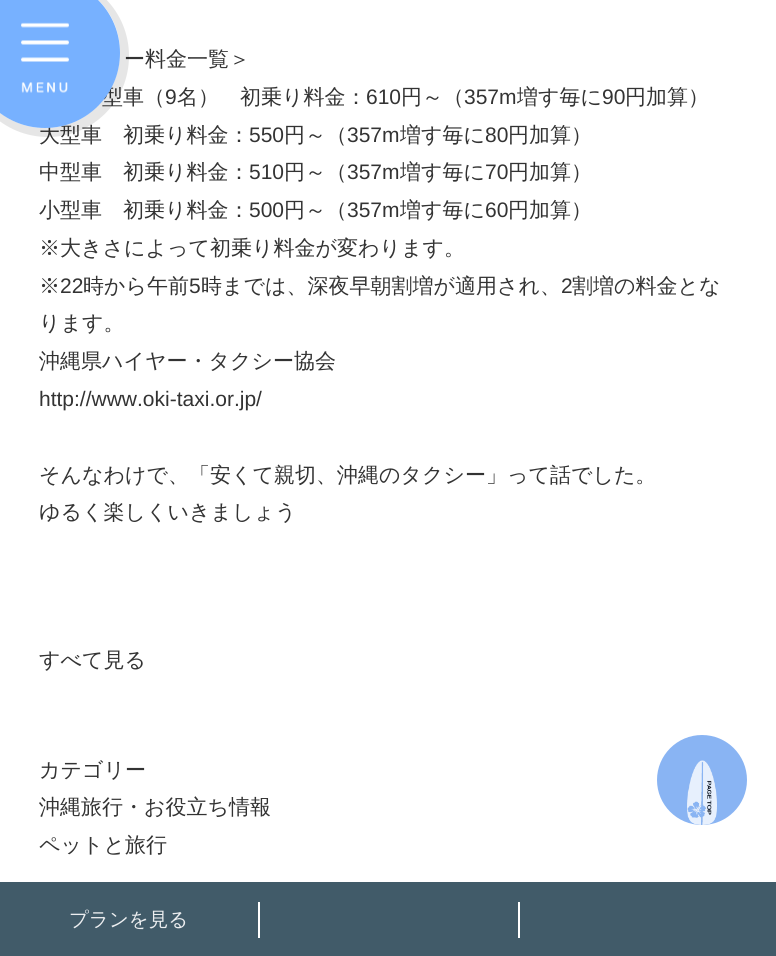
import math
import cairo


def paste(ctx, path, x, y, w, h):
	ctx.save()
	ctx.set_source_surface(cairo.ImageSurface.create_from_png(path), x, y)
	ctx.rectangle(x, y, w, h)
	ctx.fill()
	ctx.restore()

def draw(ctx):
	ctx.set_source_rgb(1, 1, 1)
	ctx.paint()
	ctx.select_font_face('WenQuanYi Zen Hei Medium')
	ctx.set_font_size(21)
	ctx.set_source_rgb(0.2, 0.2, 0.2)
	ctx.move_to(124, 66)
	ctx.show_text('ー料金一覧＞')
	ctx.move_to(102, 104)
	ctx.show_text('型車（')
	ctx.select_font_face('Liberation Sans')
	ctx.move_to(165, 104)
	ctx.show_text('9')
	ctx.select_font_face('WenQuanYi Zen Hei Medium')
	ctx.move_to(177, 104)
	ctx.show_text('名）　初乗り料金：')
	ctx.select_font_face('Liberation Sans')
	ctx.move_to(366, 104)
	ctx.show_text('610')
	ctx.select_font_face('WenQuanYi Zen Hei Medium')
	ctx.move_to(401, 104)
	ctx.show_text('円～（')
	ctx.select_font_face('Liberation Sans')
	ctx.move_to(464, 104)
	ctx.show_text('357m')
	ctx.select_font_face('WenQuanYi Zen Hei Medium')
	ctx.move_to(517, 104)
	ctx.show_text('増す毎に')
	ctx.select_font_face('Liberation Sans')
	ctx.move_to(602, 104)
	ctx.show_text('90')
	ctx.select_font_face('WenQuanYi Zen Hei Medium')
	ctx.move_to(625, 104)
	ctx.show_text('円加算）')
	ctx.move_to(39, 142)
	ctx.show_text('大型車　初乗り料金：')
	ctx.select_font_face('Liberation Sans')
	ctx.move_to(249, 142)
	ctx.show_text('550')
	ctx.select_font_face('WenQuanYi Zen Hei Medium')
	ctx.move_to(284, 142)
	ctx.show_text('円～（')
	ctx.select_font_face('Liberation Sans')
	ctx.move_to(347, 142)
	ctx.show_text('357m')
	ctx.select_font_face('WenQuanYi Zen Hei Medium')
	ctx.move_to(400, 142)
	ctx.show_text('増す毎に')
	ctx.select_font_face('Liberation Sans')
	ctx.move_to(485, 142)
	ctx.show_text('80')
	ctx.select_font_face('WenQuanYi Zen Hei Medium')
	ctx.move_to(508, 142)
	ctx.show_text('円加算）')
	ctx.move_to(39, 179)
	ctx.show_text('中型車　初乗り料金：')
	ctx.select_font_face('Liberation Sans')
	ctx.move_to(249, 179)
	ctx.show_text('510')
	ctx.select_font_face('WenQuanYi Zen Hei Medium')
	ctx.move_to(284, 179)
	ctx.show_text('円～（')
	ctx.select_font_face('Liberation Sans')
	ctx.move_to(347, 179)
	ctx.show_text('357m')
	ctx.select_font_face('WenQuanYi Zen Hei Medium')
	ctx.move_to(400, 179)
	ctx.show_text('増す毎に')
	ctx.select_font_face('Liberation Sans')
	ctx.move_to(485, 179)
	ctx.show_text('70')
	ctx.select_font_face('WenQuanYi Zen Hei Medium')
	ctx.move_to(508, 179)
	ctx.show_text('円加算）')
	ctx.move_to(39, 217)
	ctx.show_text('小型車　初乗り料金：')
	ctx.select_font_face('Liberation Sans')
	ctx.move_to(249, 217)
	ctx.show_text('500')
	ctx.select_font_face('WenQuanYi Zen Hei Medium')
	ctx.move_to(284, 217)
	ctx.show_text('円～（')
	ctx.select_font_face('Liberation Sans')
	ctx.move_to(347, 217)
	ctx.show_text('357m')
	ctx.select_font_face('WenQuanYi Zen Hei Medium')
	ctx.move_to(400, 217)
	ctx.show_text('増す毎に')
	ctx.select_font_face('Liberation Sans')
	ctx.move_to(485, 217)
	ctx.show_text('60')
	ctx.select_font_face('WenQuanYi Zen Hei Medium')
	for x, y, s in [
		(508, 217, '円加算）'),
		(39, 255, '※大きさによって初乗り料金が変わります。'),
		(39, 293, '※'),
	]:
		ctx.move_to(x, y)
		ctx.show_text(s)
	ctx.select_font_face('Liberation Sans')
	ctx.move_to(60, 293)
	ctx.show_text('22')
	ctx.select_font_face('WenQuanYi Zen Hei Medium')
	ctx.move_to(83, 293)
	ctx.show_text('時から午前')
	ctx.select_font_face('Liberation Sans')
	ctx.move_to(189, 293)
	ctx.show_text('5')
	ctx.select_font_face('WenQuanYi Zen Hei Medium')
	ctx.move_to(201, 293)
	ctx.show_text('時までは、深夜早朝割増が適用され、')
	ctx.select_font_face('Liberation Sans')
	ctx.move_to(561, 293)
	ctx.show_text('2')
	ctx.select_font_face('WenQuanYi Zen Hei Medium')
	for x, y, s in [
		(572, 293, '割増の料金とな'),
		(39, 330, 'ります。'),
		(39, 368, '沖縄県ハイヤー・タクシー協会'),
	]:
		ctx.move_to(x, y)
		ctx.show_text(s)
	ctx.select_font_face('Liberation Sans')
	ctx.move_to(39, 406)
	ctx.show_text('http://www.oki-taxi.or.jp/')
	ctx.select_font_face('WenQuanYi Zen Hei Medium')
	for x, y, s in [
		(39, 482, 'そんなわけで、「安くて親切、沖縄のタクシー」って話でした。'),
		(39, 519, 'ゆるく楽しくいきましょう'),
		(39, 667, 'すべて見る'),
		(39, 777, 'カテゴリー'),
		(39, 814, '沖縄旅行・お役立ち情報'),
		(39, 852, 'ペットと旅行'),
	]:
		ctx.move_to(x, y)
		ctx.show_text(s)
	ctx.set_source_rgba(0, 0, 0, 0.1)
	ctx.set_fill_rule(cairo.FILL_RULE_EVEN_ODD)
	ctx.new_path()
	ctx.move_to(48, -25)
	ctx.curve_to(3, -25, -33, 11, -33, 56)
	ctx.curve_to(-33, 101, 3, 137, 48, 137)
	ctx.curve_to(93, 137, 129, 101, 129, 56)
	ctx.curve_to(129, 11, 93, -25, 48, -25)
	ctx.close_path()
	ctx.move_to(45, -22)
	ctx.curve_to(4, -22, -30, 11, -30, 52)
	ctx.curve_to(-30, 94, 4, 128, 45, 128)
	ctx.curve_to(86, 128, 120, 94, 120, 52)
	ctx.curve_to(120, 11, 86, -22, 45, -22)
	ctx.close_path()
	ctx.fill()
	ctx.set_source_rgb(0.467, 0.694, 1)
	ctx.arc(45, 53, 75, 0, 2 * math.pi)
	ctx.fill()
	paste(ctx, 'media/1.png', 21, 22, 48, 71)
	ctx.set_source_rgb(0.537, 0.706, 0.953)
	ctx.arc(702, 780, 45, 0, 2 * math.pi)
	ctx.fill()
	paste(ctx, 'media/2.png', 687, 760, 30, 65)
	ctx.set_source_rgba(0.176, 0.29, 0.349, 0.9)
	ctx.rectangle(0, 882, 776, 74)
	ctx.fill()
	ctx.set_source_rgb(1, 1, 1)
	ctx.rectangle(258, 902, 2, 36)
	ctx.fill()
	ctx.set_font_size(19.5)
	ctx.set_source_rgb(0.925, 0.933, 0.941)
	ctx.move_to(69, 926)
	ctx.show_text('プランを見る')
	ctx.set_source_rgb(1, 1, 1)
	ctx.rectangle(518, 902, 2, 36)
	ctx.fill()


surface = cairo.ImageSurface(cairo.FORMAT_RGB24, 776, 956)
ctx = cairo.Context(surface)
options = cairo.FontOptions()
options.set_hint_metrics(cairo.HINT_METRICS_OFF)
options.set_hint_style(cairo.HINT_STYLE_NONE)
ctx.set_font_options(options)
ctx.set_miter_limit(4)
draw(ctx)
surface.write_to_png('image.png')
